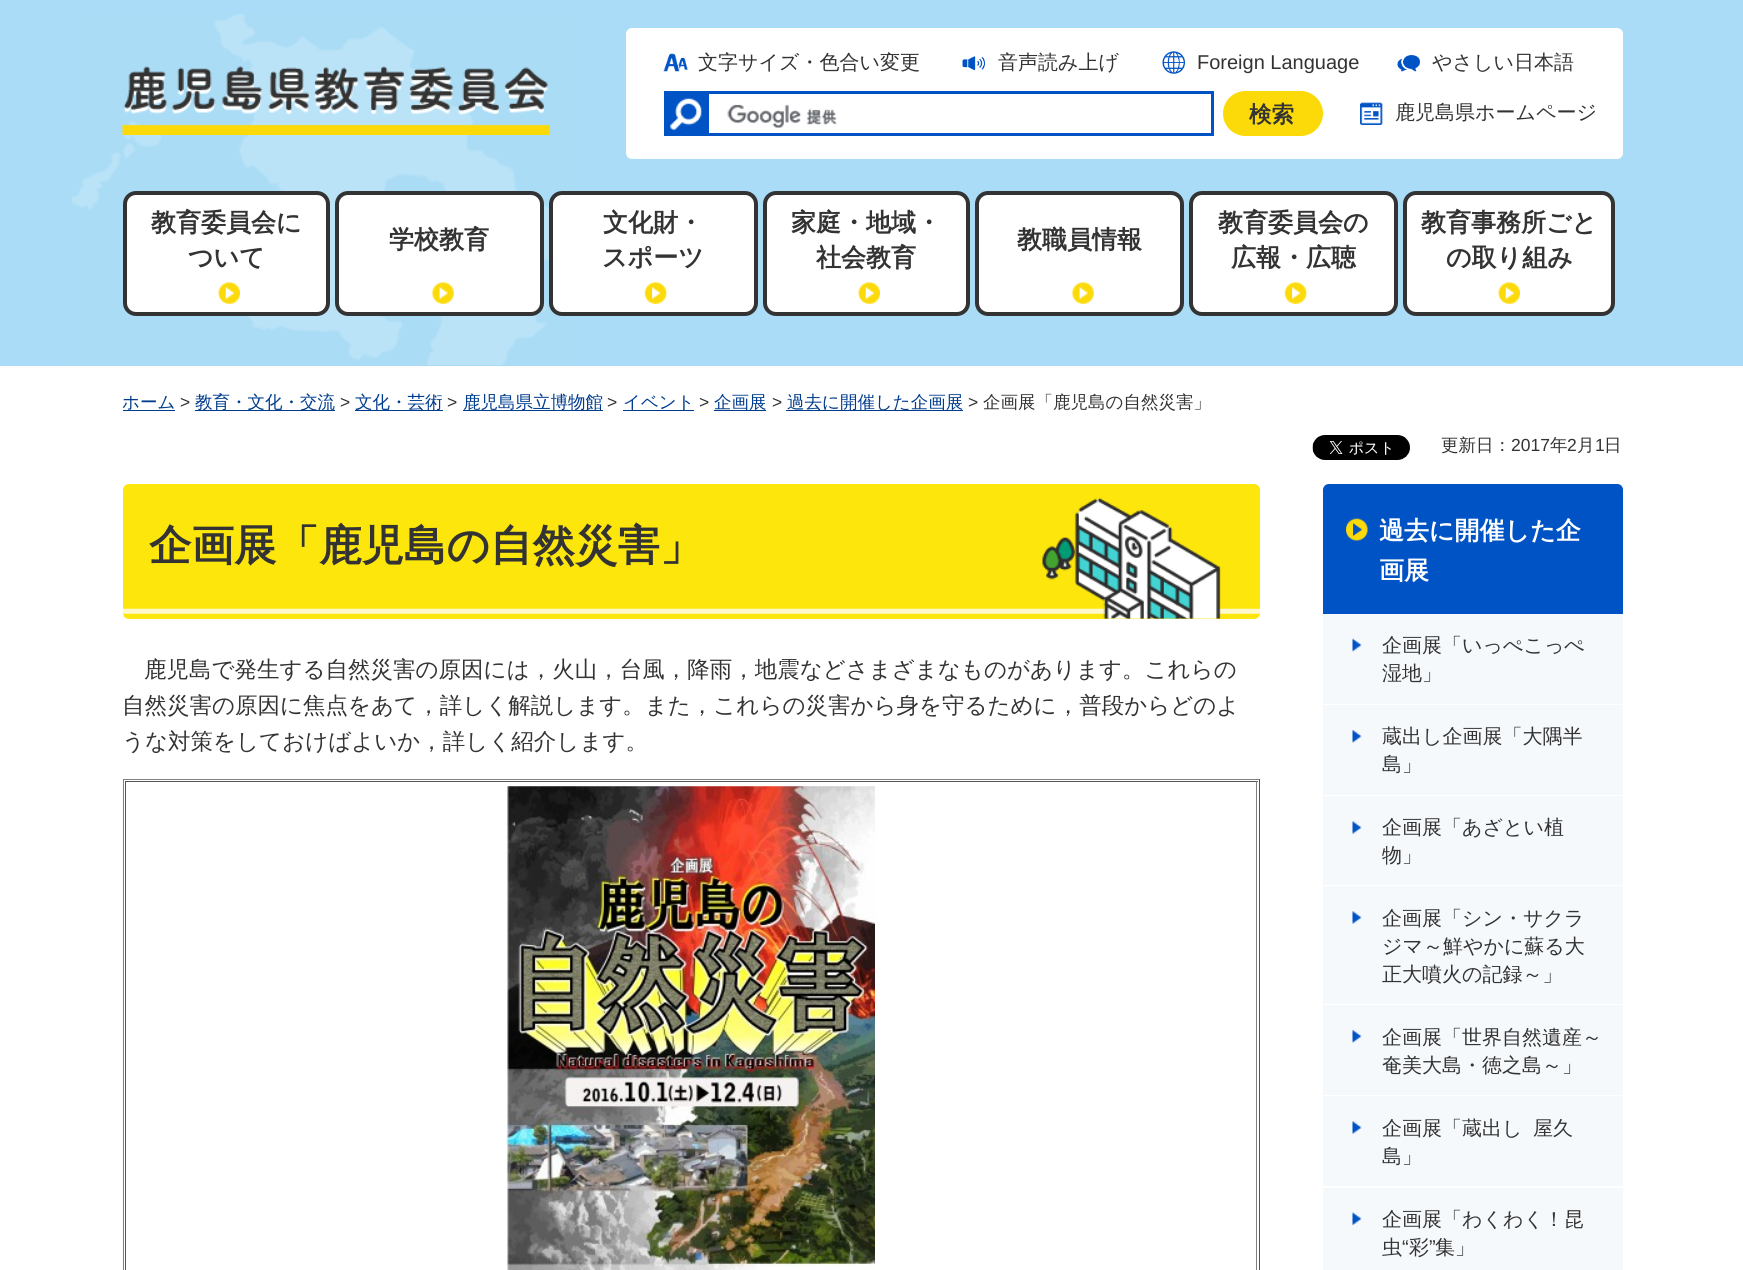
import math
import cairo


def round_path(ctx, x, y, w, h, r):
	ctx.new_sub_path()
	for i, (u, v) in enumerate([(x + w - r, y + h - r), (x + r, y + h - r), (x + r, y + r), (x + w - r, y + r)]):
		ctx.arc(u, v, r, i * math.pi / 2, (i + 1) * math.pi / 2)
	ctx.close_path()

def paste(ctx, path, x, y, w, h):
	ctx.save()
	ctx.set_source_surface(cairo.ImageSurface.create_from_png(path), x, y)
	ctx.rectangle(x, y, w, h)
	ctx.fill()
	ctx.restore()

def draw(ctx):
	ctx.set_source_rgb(1, 1, 1)
	ctx.paint()
	ctx.set_source_rgb(0.667, 0.863, 0.965)
	ctx.rectangle(0, 0, 1743, 366)
	ctx.fill()
	paste(ctx, 'media/1.png', 72, 14, 504, 351)
	paste(ctx, 'media/2.png', 122, 66, 428, 69)
	ctx.set_source_rgb(1, 1, 1)
	round_path(ctx, 626, 28, 997, 131, 6)
	ctx.fill()
	paste(ctx, 'media/3.png', 663, 53, 25, 19)
	ctx.select_font_face('WenQuanYi Zen Hei Medium')
	ctx.set_font_size(20)
	ctx.set_source_rgb(0.2, 0.2, 0.2)
	ctx.move_to(698, 69)
	ctx.show_text('文字サイズ・色合い変更')
	paste(ctx, 'media/4.png', 962, 56, 23, 14)
	ctx.move_to(998, 69)
	ctx.show_text('音声読み上げ')
	paste(ctx, 'media/5.png', 1162, 51, 23, 23)
	ctx.select_font_face('Liberation Sans')
	ctx.move_to(1197, 69)
	ctx.show_text('Foreign Language')
	paste(ctx, 'media/6.png', 1397, 55, 23, 17)
	ctx.select_font_face('WenQuanYi Zen Hei Medium')
	ctx.move_to(1432, 69)
	ctx.show_text('やさしい日本語')
	paste(ctx, 'media/7.png', 727, 104, 110, 24)
	ctx.rectangle(665.5, 92.5, 547, 42)
	ctx.set_source_rgb(0, 0.325, 0.769)
	ctx.set_line_width(3)
	ctx.stroke()
	ctx.rectangle(667, 94, 42, 39)
	ctx.fill()
	paste(ctx, 'media/8.png', 670, 98, 32, 32)
	ctx.set_source_rgb(0.988, 0.855, 0.039)
	round_path(ctx, 1223.5, 91.5, 99, 44, 22)
	ctx.fill_preserve()
	ctx.set_line_width(1)
	ctx.stroke()
	ctx.select_font_face('WenQuanYi Zen Hei', cairo.FONT_SLANT_NORMAL, cairo.FONT_WEIGHT_BOLD)
	ctx.set_font_size(22.5)
	ctx.set_source_rgb(0.2, 0.2, 0.2)
	ctx.move_to(1249, 122)
	ctx.show_text('検索')
	paste(ctx, 'media/9.png', 1360, 102, 23, 23)
	ctx.select_font_face('WenQuanYi Zen Hei Medium')
	ctx.set_font_size(20)
	ctx.move_to(1395, 119)
	ctx.show_text('鹿児島県ホームページ')
	ctx.set_source_rgb(1, 1, 1)
	round_path(ctx, 125, 193, 203, 121, 11)
	ctx.fill_preserve()
	ctx.set_source_rgb(0.2, 0.2, 0.2)
	ctx.set_line_width(4)
	ctx.stroke()
	ctx.select_font_face('WenQuanYi Zen Hei', cairo.FONT_SLANT_NORMAL, cairo.FONT_WEIGHT_BOLD)
	ctx.set_font_size(25)
	ctx.move_to(151, 231)
	ctx.show_text('教育委員会に')
	ctx.move_to(188, 266)
	ctx.show_text('ついて')
	paste(ctx, 'media/10.png', 218, 282, 22, 22)
	ctx.set_source_rgb(1, 1, 1)
	round_path(ctx, 337, 193, 205, 121, 11)
	ctx.fill_preserve()
	ctx.set_source_rgb(0.2, 0.2, 0.2)
	ctx.stroke()
	ctx.move_to(389, 248)
	ctx.show_text('学校教育')
	paste(ctx, 'media/11.png', 432, 282, 22, 22)
	ctx.set_source_rgb(1, 1, 1)
	round_path(ctx, 551, 193, 205, 121, 11)
	ctx.fill_preserve()
	ctx.set_source_rgb(0.2, 0.2, 0.2)
	ctx.stroke()
	ctx.move_to(603, 231)
	ctx.show_text('文化財・')
	ctx.move_to(602, 266)
	ctx.show_text('スポーツ')
	paste(ctx, 'media/12.png', 644, 282, 23, 22)
	ctx.set_source_rgb(1, 1, 1)
	round_path(ctx, 765, 193, 203, 121, 11)
	ctx.fill_preserve()
	ctx.set_source_rgb(0.2, 0.2, 0.2)
	ctx.stroke()
	ctx.move_to(791, 231)
	ctx.show_text('家庭・地域・')
	ctx.move_to(816, 266)
	ctx.show_text('社会教育')
	paste(ctx, 'media/10.png', 858, 282, 22, 22)
	ctx.set_source_rgb(1, 1, 1)
	round_path(ctx, 977, 193, 205, 121, 11)
	ctx.fill_preserve()
	ctx.set_source_rgb(0.2, 0.2, 0.2)
	ctx.stroke()
	ctx.move_to(1017, 248)
	ctx.show_text('教職員情報')
	paste(ctx, 'media/11.png', 1072, 282, 22, 22)
	ctx.set_source_rgb(1, 1, 1)
	round_path(ctx, 1191, 193, 205, 121, 11)
	ctx.fill_preserve()
	ctx.set_source_rgb(0.2, 0.2, 0.2)
	ctx.stroke()
	ctx.move_to(1218, 231)
	ctx.show_text('教育委員会の')
	ctx.move_to(1231, 266)
	ctx.show_text('広報・広聴')
	paste(ctx, 'media/12.png', 1284, 282, 23, 22)
	ctx.set_source_rgb(1, 1, 1)
	round_path(ctx, 1405, 193, 208, 121, 11)
	ctx.fill_preserve()
	ctx.set_source_rgb(0.2, 0.2, 0.2)
	ctx.stroke()
	ctx.move_to(1421, 231)
	ctx.show_text('教育事務所ごと')
	ctx.move_to(1446, 266)
	ctx.show_text('の取り組み')
	paste(ctx, 'media/10.png', 1498, 282, 22, 22)
	ctx.select_font_face('WenQuanYi Zen Hei Medium')
	ctx.set_font_size(17.5)
	ctx.set_source_rgb(0, 0.235, 0.557)
	ctx.move_to(122, 408)
	ctx.show_text('ホーム')
	ctx.rectangle(123, 410, 52, 1)
	ctx.fill()
	ctx.select_font_face('Liberation Sans')
	ctx.set_source_rgb(0.2, 0.2, 0.2)
	ctx.move_to(180, 408)
	ctx.show_text('>')
	ctx.set_source_rgb(0, 0.235, 0.557)
	ctx.rectangle(195, 410, 140, 1)
	ctx.fill()
	ctx.select_font_face('WenQuanYi Zen Hei Medium')
	ctx.move_to(195, 408)
	ctx.show_text('教育・文化・交流')
	ctx.select_font_face('Liberation Sans')
	ctx.set_source_rgb(0.2, 0.2, 0.2)
	ctx.move_to(340, 408)
	ctx.show_text('>')
	ctx.set_source_rgb(0, 0.235, 0.557)
	ctx.rectangle(355, 410, 88, 1)
	ctx.fill()
	ctx.select_font_face('WenQuanYi Zen Hei Medium')
	ctx.move_to(355, 408)
	ctx.show_text('文化・芸術')
	ctx.select_font_face('Liberation Sans')
	ctx.set_source_rgb(0.2, 0.2, 0.2)
	ctx.move_to(447, 408)
	ctx.show_text('>')
	ctx.set_source_rgb(0, 0.235, 0.557)
	ctx.rectangle(463, 410, 140, 1)
	ctx.fill()
	ctx.select_font_face('WenQuanYi Zen Hei Medium')
	ctx.move_to(463, 408)
	ctx.show_text('鹿児島県立博物館')
	ctx.select_font_face('Liberation Sans')
	ctx.set_source_rgb(0.2, 0.2, 0.2)
	ctx.move_to(607, 408)
	ctx.show_text('>')
	ctx.set_source_rgb(0, 0.235, 0.557)
	ctx.rectangle(623, 410, 71, 1)
	ctx.fill()
	ctx.select_font_face('WenQuanYi Zen Hei Medium')
	ctx.move_to(623, 408)
	ctx.show_text('イベント')
	ctx.select_font_face('Liberation Sans')
	ctx.set_source_rgb(0.2, 0.2, 0.2)
	ctx.move_to(699, 408)
	ctx.show_text('>')
	ctx.set_source_rgb(0, 0.235, 0.557)
	ctx.rectangle(714, 410, 52, 1)
	ctx.fill()
	ctx.select_font_face('WenQuanYi Zen Hei Medium')
	ctx.move_to(714, 408)
	ctx.show_text('企画展')
	ctx.select_font_face('Liberation Sans')
	ctx.set_source_rgb(0.2, 0.2, 0.2)
	ctx.move_to(772, 408)
	ctx.show_text('>')
	ctx.set_source_rgb(0, 0.235, 0.557)
	ctx.rectangle(786, 410, 177, 1)
	ctx.fill()
	ctx.select_font_face('WenQuanYi Zen Hei Medium')
	ctx.move_to(787, 408)
	ctx.show_text('過去に開催した企画展')
	ctx.select_font_face('Liberation Sans')
	ctx.set_source_rgb(0.2, 0.2, 0.2)
	ctx.move_to(968, 408)
	ctx.show_text('>')
	ctx.select_font_face('WenQuanYi Zen Hei Medium')
	ctx.move_to(983, 408)
	ctx.show_text('企画展「鹿児島の自然災害」')
	paste(ctx, 'media/13.png', 1312, 435, 98, 25)
	ctx.move_to(1441, 451)
	ctx.show_text('更新日：')
	ctx.select_font_face('Liberation Sans')
	ctx.move_to(1511, 451)
	ctx.show_text('2017')
	ctx.select_font_face('WenQuanYi Zen Hei Medium')
	ctx.move_to(1550, 451)
	ctx.show_text('年')
	ctx.select_font_face('Liberation Sans')
	ctx.move_to(1567, 451)
	ctx.show_text('2')
	ctx.select_font_face('WenQuanYi Zen Hei Medium')
	ctx.move_to(1577, 451)
	ctx.show_text('月')
	ctx.select_font_face('Liberation Sans')
	ctx.move_to(1595, 451)
	ctx.show_text('1')
	ctx.select_font_face('WenQuanYi Zen Hei Medium')
	ctx.move_to(1604, 451)
	ctx.show_text('日')
	ctx.set_source_rgb(0.992, 0.902, 0.043)
	round_path(ctx, 123, 484, 1137, 135, 6)
	ctx.fill()
	paste(ctx, 'media/14.png', 122, 498, 1138, 121)
	ctx.select_font_face('WenQuanYi Zen Hei', cairo.FONT_SLANT_NORMAL, cairo.FONT_WEIGHT_BOLD)
	ctx.set_font_size(42.5)
	ctx.set_source_rgb(0.2, 0.2, 0.2)
	ctx.move_to(149, 560)
	ctx.show_text('企画展「鹿児島の自然災害」')
	ctx.select_font_face('WenQuanYi Zen Hei Medium')
	ctx.set_font_size(22.5)
	for x, y, s in [
		(144, 677, '鹿児島で発生する自然災害の原因には，火山，台風，降雨，地震などさまざまなものがあります。これらの'),
		(122, 713, '自然災害の原因に焦点をあて，詳しく解説します。また，これらの災害から身を守るために，普段からどのよ'),
		(122, 749, 'うな対策をしておけばよいか，詳しく紹介します。'),
	]:
		ctx.move_to(x, y)
		ctx.show_text(s)
	ctx.set_source_rgb(0.502, 0.502, 0.502)
	ctx.rectangle(123, 779, 1137, 1)
	ctx.fill()
	ctx.set_source_rgb(0.333, 0.333, 0.333)
	ctx.rectangle(1259, 779, 1, 491)
	ctx.fill()
	ctx.set_source_rgb(0.502, 0.502, 0.502)
	ctx.rectangle(123, 779, 1, 491)
	ctx.fill()
	ctx.set_source_rgb(0.333, 0.333, 0.333)
	ctx.rectangle(125, 781, 1133, 1)
	ctx.fill()
	ctx.set_source_rgb(0.502, 0.502, 0.502)
	ctx.rectangle(1256, 781, 1, 489)
	ctx.fill()
	ctx.set_source_rgb(0.333, 0.333, 0.333)
	ctx.rectangle(125, 781, 1, 489)
	ctx.fill()
	paste(ctx, 'media/15.png', 506, 786, 369, 484)
	ctx.set_source_rgb(0, 0.325, 0.769)
	ctx.new_path()
	ctx.move_to(1329, 484)
	ctx.line_to(1617, 484)
	ctx.curve_to(1620.5, 484, 1623, 486.5, 1623, 490)
	ctx.line_to(1623, 614)
	ctx.line_to(1323, 614)
	ctx.line_to(1323, 490)
	ctx.curve_to(1323, 486.5, 1325.5, 484, 1329, 484)
	ctx.close_path()
	ctx.fill()
	ctx.new_path()
	ctx.move_to(1331, 484)
	ctx.line_to(1615, 484)
	ctx.curve_to(1619.5, 484, 1623, 487.5, 1623, 492)
	ctx.line_to(1623, 614)
	ctx.line_to(1323, 614)
	ctx.line_to(1323, 492)
	ctx.curve_to(1323, 487.5, 1326.5, 484, 1331, 484)
	ctx.close_path()
	ctx.fill()
	paste(ctx, 'media/16.png', 1346, 518, 22, 23)
	ctx.select_font_face('WenQuanYi Zen Hei', cairo.FONT_SLANT_NORMAL, cairo.FONT_WEIGHT_BOLD)
	ctx.set_font_size(25)
	ctx.set_source_rgb(1, 1, 1)
	ctx.move_to(1379, 539)
	ctx.show_text('過去に開催した企')
	ctx.move_to(1379, 579)
	ctx.show_text('画展')
	ctx.set_source_rgb(0.961, 0.973, 0.988)
	ctx.rectangle(1323, 614, 300, 90)
	ctx.fill()
	paste(ctx, 'media/17.png', 1352, 638, 10, 14)
	ctx.select_font_face('WenQuanYi Zen Hei Medium')
	ctx.set_font_size(20)
	ctx.set_source_rgb(0.2, 0.2, 0.2)
	ctx.move_to(1382, 652)
	ctx.show_text('企画展「いっぺこっぺ')
	ctx.move_to(1382, 680)
	ctx.show_text('湿地」')
	ctx.set_source_rgb(0.961, 0.973, 0.988)
	ctx.rectangle(1323, 705, 300, 90)
	ctx.fill()
	paste(ctx, 'media/18.png', 1352, 730, 10, 13)
	ctx.set_source_rgb(0.2, 0.2, 0.2)
	ctx.move_to(1382, 743)
	ctx.show_text('蔵出し企画展「大隅半')
	ctx.move_to(1382, 771)
	ctx.show_text('島」')
	ctx.set_source_rgb(0.961, 0.973, 0.988)
	ctx.rectangle(1323, 796, 300, 89)
	ctx.fill()
	paste(ctx, 'media/19.png', 1352, 821, 10, 13)
	ctx.set_source_rgb(0.2, 0.2, 0.2)
	ctx.move_to(1382, 834)
	ctx.show_text('企画展「あざとい植')
	ctx.move_to(1382, 862)
	ctx.show_text('物」')
	ctx.set_source_rgb(0.961, 0.973, 0.988)
	ctx.rectangle(1323, 886, 300, 118)
	ctx.fill()
	paste(ctx, 'media/19.png', 1352, 911, 10, 13)
	ctx.set_source_rgb(0.2, 0.2, 0.2)
	for x, y, s in [
		(1382, 925, '企画展「シン・サクラ'),
		(1382, 953, 'ジマ～鮮やかに蘇る大'),
		(1382, 981, '正大噴火の記録～」'),
	]:
		ctx.move_to(x, y)
		ctx.show_text(s)
	ctx.set_source_rgb(0.961, 0.973, 0.988)
	ctx.rectangle(1323, 1005, 300, 90)
	ctx.fill()
	paste(ctx, 'media/18.png', 1352, 1030, 10, 13)
	ctx.set_source_rgb(0.2, 0.2, 0.2)
	ctx.move_to(1382, 1044)
	ctx.show_text('企画展「世界自然遺産～')
	ctx.move_to(1382, 1072)
	ctx.show_text('奄美大島・徳之島～」')
	ctx.set_source_rgb(0.961, 0.973, 0.988)
	ctx.rectangle(1323, 1096, 300, 90)
	ctx.fill()
	paste(ctx, 'media/19.png', 1352, 1121, 10, 13)
	ctx.set_source_rgb(0.2, 0.2, 0.2)
	for x, y, s in [
		(1382, 1135, '企画展「蔵出し'),
		(1533, 1135, '屋久'),
		(1382, 1163, '島」'),
	]:
		ctx.move_to(x, y)
		ctx.show_text(s)
	ctx.set_source_rgb(0.961, 0.973, 0.988)
	ctx.rectangle(1323, 1188, 300, 82)
	ctx.fill()
	paste(ctx, 'media/20.png', 1352, 1212, 10, 13)
	ctx.set_source_rgb(0.2, 0.2, 0.2)
	ctx.move_to(1382, 1226)
	ctx.show_text('企画展「わくわく！昆')
	ctx.move_to(1382, 1254)
	ctx.show_text('虫')
	ctx.select_font_face('Liberation Sans')
	ctx.move_to(1402, 1254)
	ctx.show_text('“')
	ctx.select_font_face('WenQuanYi Zen Hei Medium')
	ctx.move_to(1409, 1254)
	ctx.show_text('彩')
	ctx.select_font_face('Liberation Sans')
	ctx.move_to(1429, 1254)
	ctx.show_text('”')
	ctx.select_font_face('WenQuanYi Zen Hei Medium')
	ctx.move_to(1435, 1254)
	ctx.show_text('集」')


surface = cairo.ImageSurface(cairo.FORMAT_RGB24, 1743, 1270)
ctx = cairo.Context(surface)
options = cairo.FontOptions()
options.set_hint_metrics(cairo.HINT_METRICS_OFF)
options.set_hint_style(cairo.HINT_STYLE_NONE)
ctx.set_font_options(options)
ctx.set_miter_limit(4)
draw(ctx)
surface.write_to_png('image.png')
